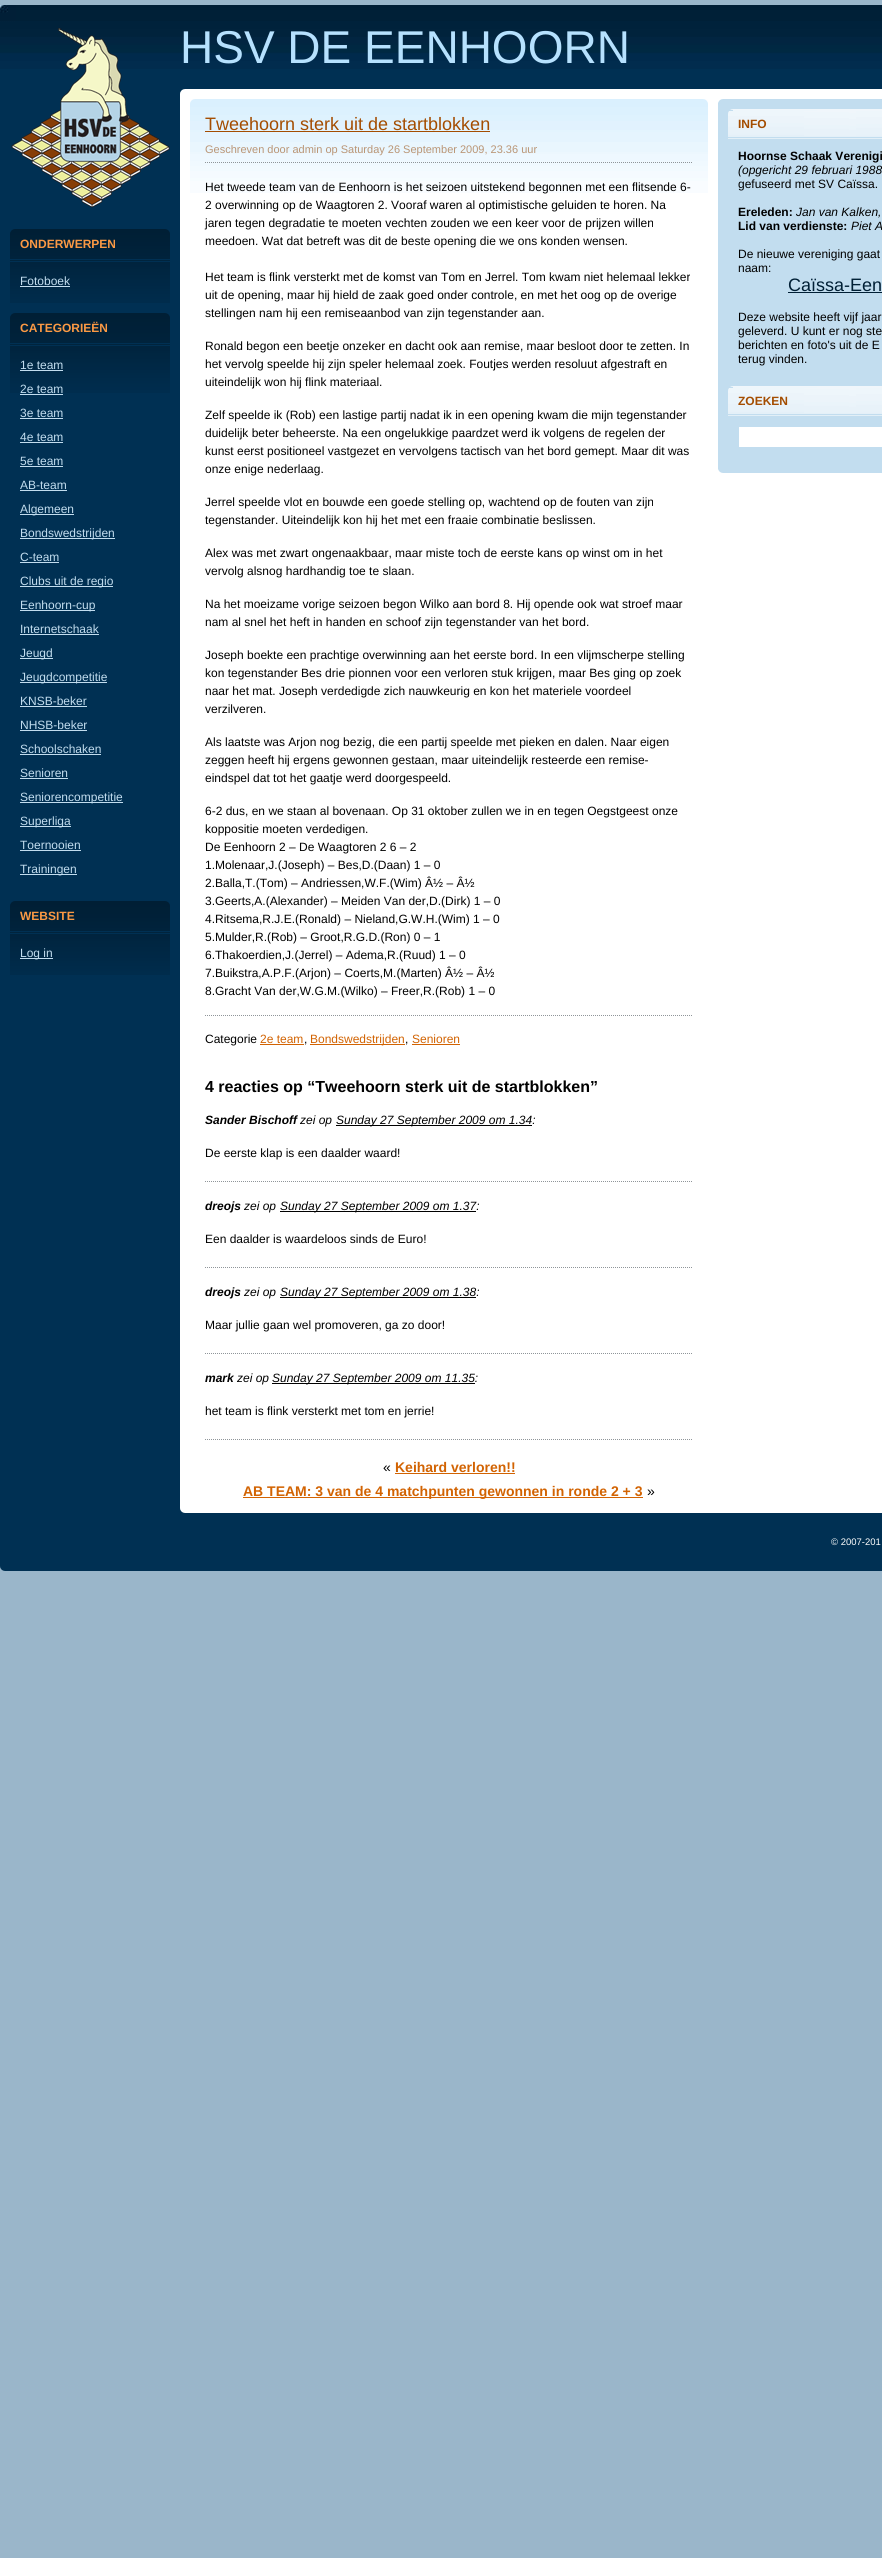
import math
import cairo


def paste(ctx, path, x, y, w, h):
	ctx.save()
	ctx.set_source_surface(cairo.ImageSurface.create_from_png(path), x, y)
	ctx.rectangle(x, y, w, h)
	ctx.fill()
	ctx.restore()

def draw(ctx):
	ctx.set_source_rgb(0.604, 0.714, 0.792)
	ctx.paint()
	ctx.set_source_rgb(0, 0.188, 0.325)
	ctx.rectangle(0, 69, 882, 1502)
	ctx.fill()
	paste(ctx, 'media/1.png', 0, 5, 882, 64)
	ctx.select_font_face('Liberation Sans')
	ctx.set_font_size(46)
	ctx.set_source_rgb(0.714, 0.882, 0.996)
	ctx.move_to(180, 63)
	ctx.show_text('HSV DE EENHOORN')
	paste(ctx, 'media/2.png', 11, 28, 159, 180)
	paste(ctx, 'media/3.png', 10, 229, 160, 30)
	ctx.select_font_face('Liberation Sans', cairo.FONT_SLANT_NORMAL, cairo.FONT_WEIGHT_BOLD)
	ctx.set_font_size(12)
	ctx.set_source_rgb(0.98, 0.6, 0.267)
	ctx.move_to(20, 248)
	ctx.show_text('ONDERWERPEN')
	paste(ctx, 'media/4.png', 10, 260, 160, 43)
	ctx.select_font_face('Liberation Sans')
	ctx.set_source_rgb(0.761, 0.867, 0.937)
	ctx.move_to(20, 285)
	ctx.show_text('Fotoboek')
	ctx.rectangle(20, 286, 50, 1)
	ctx.fill()
	paste(ctx, 'media/3.png', 10, 313, 160, 30)
	ctx.select_font_face('Liberation Sans', cairo.FONT_SLANT_NORMAL, cairo.FONT_WEIGHT_BOLD)
	ctx.set_source_rgb(0.98, 0.6, 0.267)
	ctx.move_to(20, 332)
	ctx.show_text('CATEGORIEËN')
	paste(ctx, 'media/5.png', 10, 344, 160, 49)
	ctx.select_font_face('Liberation Sans')
	ctx.set_source_rgb(0.761, 0.867, 0.937)
	ctx.move_to(20, 369)
	ctx.show_text('1e team')
	ctx.rectangle(20, 370, 43, 1)
	ctx.fill()
	ctx.move_to(20, 393)
	ctx.show_text('2e team')
	ctx.rectangle(20, 394, 43, 1)
	ctx.fill()
	ctx.move_to(20, 417)
	ctx.show_text('3e team')
	ctx.rectangle(20, 418, 43, 1)
	ctx.fill()
	ctx.move_to(20, 441)
	ctx.show_text('4e team')
	ctx.rectangle(20, 442, 43, 1)
	ctx.fill()
	ctx.move_to(20, 465)
	ctx.show_text('5e team')
	ctx.rectangle(20, 466, 43, 1)
	ctx.fill()
	ctx.move_to(20, 489)
	ctx.show_text('AB-team')
	ctx.rectangle(20, 490, 47, 1)
	ctx.fill()
	ctx.rectangle(20, 514, 54, 1)
	ctx.fill()
	ctx.move_to(20, 513)
	ctx.show_text('Algemeen')
	ctx.rectangle(20, 538, 95, 1)
	ctx.fill()
	ctx.move_to(20, 537)
	ctx.show_text('Bondswedstrijden')
	ctx.move_to(20, 561)
	ctx.show_text('C-team')
	ctx.rectangle(20, 562, 39, 1)
	ctx.fill()
	ctx.rectangle(20, 586, 93, 1)
	ctx.fill()
	ctx.move_to(20, 585)
	ctx.show_text('Clubs uit de regio')
	ctx.rectangle(20, 610, 75, 1)
	ctx.fill()
	ctx.move_to(20, 609)
	ctx.show_text('Eenhoorn-cup')
	ctx.move_to(20, 633)
	ctx.show_text('Internetschaak')
	ctx.rectangle(20, 634, 79, 1)
	ctx.fill()
	ctx.rectangle(20, 658, 33, 1)
	ctx.fill()
	ctx.move_to(20, 657)
	ctx.show_text('Jeugd')
	ctx.rectangle(20, 682, 87, 1)
	ctx.fill()
	ctx.move_to(20, 681)
	ctx.show_text('Jeugdcompetitie')
	ctx.move_to(20, 705)
	ctx.show_text('KNSB-beker')
	ctx.rectangle(20, 706, 67, 1)
	ctx.fill()
	ctx.move_to(20, 729)
	ctx.show_text('NHSB-beker')
	ctx.rectangle(20, 730, 67, 1)
	ctx.fill()
	ctx.move_to(20, 753)
	ctx.show_text('Schoolschaken')
	ctx.rectangle(20, 754, 81, 1)
	ctx.fill()
	ctx.move_to(20, 777)
	ctx.show_text('Senioren')
	ctx.rectangle(20, 778, 48, 1)
	ctx.fill()
	ctx.rectangle(20, 802, 103, 1)
	ctx.fill()
	ctx.move_to(20, 801)
	ctx.show_text('Seniorencompetitie')
	ctx.rectangle(20, 826, 51, 1)
	ctx.fill()
	ctx.move_to(20, 825)
	ctx.show_text('Superliga')
	ctx.move_to(20, 849)
	ctx.show_text('Toernooien')
	ctx.rectangle(20, 850, 61, 1)
	ctx.fill()
	ctx.rectangle(20, 874, 57, 1)
	ctx.fill()
	ctx.move_to(20, 873)
	ctx.show_text('Trainingen')
	paste(ctx, 'media/3.png', 10, 901, 160, 30)
	ctx.select_font_face('Liberation Sans', cairo.FONT_SLANT_NORMAL, cairo.FONT_WEIGHT_BOLD)
	ctx.set_source_rgb(0.98, 0.6, 0.267)
	ctx.move_to(20, 920)
	ctx.show_text('WEBSITE')
	paste(ctx, 'media/4.png', 10, 932, 160, 43)
	ctx.set_source_rgb(0.761, 0.867, 0.937)
	ctx.rectangle(20, 958, 33, 1)
	ctx.fill()
	ctx.select_font_face('Liberation Sans')
	ctx.move_to(20, 957)
	ctx.show_text('Log in')
	ctx.set_source_rgb(1, 1, 1)
	ctx.rectangle(180, 89, 702, 1424)
	ctx.fill()
	paste(ctx, 'media/6.png', 180, 1508, 5, 5)
	paste(ctx, 'media/7.png', 180, 89, 5, 5)
	paste(ctx, 'media/8.png', 190, 99, 518, 94)
	ctx.set_font_size(18)
	ctx.set_source_rgb(0.643, 0.302, 0.004)
	ctx.move_to(205, 130)
	ctx.show_text('Tweehoorn sterk uit de startblokken')
	ctx.rectangle(205, 131, 285, 1)
	ctx.fill()
	paste(ctx, 'media/9.png', 205, 162, 487, 1)
	ctx.set_font_size(11)
	ctx.set_source_rgb(0.729, 0.584, 0.459)
	ctx.move_to(205, 153)
	ctx.show_text('Geschreven door admin op Saturday 26 September 2009, 23.36 uur')
	ctx.set_font_size(12)
	ctx.set_source_rgb(0, 0, 0)
	for x, y, s in [
		(205, 191, 'Het tweede team van de Eenhoorn is het seizoen uitstekend begonnen met een flitsende 6-'),
		(205, 209, '2 overwinning op de Waagtoren 2. Vooraf waren al optimistische geluiden te horen. Na'),
		(205, 227, 'jaren tegen degradatie te moeten vechten zouden we een keer voor de prijzen willen'),
		(205, 245, 'meedoen. Wat dat betreft was dit de beste opening die we ons konden wensen.'),
		(205, 281, 'Het team is flink versterkt met de komst van Tom en Jerrel. Tom kwam niet helemaal lekker'),
		(205, 299, 'uit de opening, maar hij hield de zaak goed onder controle, en met het oog op de overige'),
		(205, 317, 'stellingen nam hij een remiseaanbod van zijn tegenstander aan.'),
		(205, 350, 'Ronald begon een beetje onzeker en dacht ook aan remise, maar besloot door te zetten. In'),
		(205, 368, 'het vervolg speelde hij zijn speler helemaal zoek. Foutjes werden resoluut afgestraft en'),
		(205, 386, 'uiteindelijk won hij flink materiaal.'),
		(205, 419, 'Zelf speelde ik (Rob) een lastige partij nadat ik in een opening kwam die mijn tegenstander'),
		(205, 437, 'duidelijk beter beheerste. Na een ongelukkige paardzet werd ik volgens de regelen der'),
		(205, 455, 'kunst eerst positioneel vastgezet en vervolgens tactisch van het bord gemept. Maar dit was'),
		(205, 473, 'onze enige nederlaag.'),
		(205, 506, 'Jerrel speelde vlot en bouwde een goede stelling op, wachtend op de fouten van zijn'),
		(205, 524, 'tegenstander. Uiteindelijk kon hij het met een fraaie combinatie beslissen.'),
		(205, 557, 'Alex was met zwart ongenaakbaar, maar miste toch de eerste kans op winst om in het'),
		(205, 575, 'vervolg alsnog hardhandig toe te slaan.'),
		(205, 608, 'Na het moeizame vorige seizoen begon Wilko aan bord 8. Hij opende ook wat stroef maar'),
		(205, 626, 'nam al snel het heft in handen en schoof zijn tegenstander van het bord.'),
		(205, 659, 'Joseph boekte een prachtige overwinning aan het eerste bord. In een vlijmscherpe stelling'),
		(205, 677, 'kon tegenstander Bes drie pionnen voor een verloren stuk krijgen, maar Bes ging op zoek'),
		(205, 695, 'naar het mat. Joseph verdedigde zich nauwkeurig en kon het materiele voordeel'),
		(205, 713, 'verzilveren.'),
		(205, 746, 'Als laatste was Arjon nog bezig, die een partij speelde met pieken en dalen. Naar eigen'),
		(205, 764, 'zeggen heeft hij ergens gewonnen gestaan, maar uiteindelijk resteerde een remise-'),
		(205, 782, 'eindspel dat tot het gaatje werd doorgespeeld.'),
		(205, 815, '6-2 dus, en we staan al bovenaan. Op 31 oktober zullen we in en tegen Oegstgeest onze'),
		(205, 833, 'koppositie moeten verdedigen.'),
		(205, 851, 'De Eenhoorn 2 – De Waagtoren 2 6 – 2'),
		(205, 869, '1.Molenaar,J.(Joseph) – Bes,D.(Daan) 1 – 0'),
		(205, 887, '2.Balla,T.(Tom) – Andriessen,W.F.(Wim) Â½ – Â½'),
		(205, 905, '3.Geerts,A.(Alexander) – Meiden Van der,D.(Dirk) 1 – 0'),
		(205, 923, '4.Ritsema,R.J.E.(Ronald) – Nieland,G.W.H.(Wim) 1 – 0'),
		(205, 941, '5.Mulder,R.(Rob) – Groot,R.G.D.(Ron) 0 – 1'),
		(205, 959, '6.Thakoerdien,J.(Jerrel) – Adema,R.(Ruud) 1 – 0'),
		(205, 977, '7.Buikstra,A.P.F.(Arjon) – Coerts,M.(Marten) Â½ – Â½'),
		(205, 995, '8.Gracht Van der,W.G.M.(Wilko) – Freer,R.(Rob) 1 – 0'),
	]:
		ctx.move_to(x, y)
		ctx.show_text(s)
	paste(ctx, 'media/10.png', 205, 1015, 487, 1)
	ctx.move_to(205, 1043)
	ctx.show_text('Categorie')
	ctx.set_source_rgb(0.824, 0.388, 0.008)
	ctx.move_to(260, 1043)
	ctx.show_text('2e team')
	ctx.rectangle(260, 1044, 44, 1)
	ctx.fill()
	ctx.set_source_rgb(0, 0, 0)
	ctx.move_to(304, 1043)
	ctx.show_text(',')
	ctx.set_source_rgb(0.824, 0.388, 0.008)
	ctx.rectangle(310, 1044, 95, 1)
	ctx.fill()
	ctx.move_to(310, 1043)
	ctx.show_text('Bondswedstrijden')
	ctx.set_source_rgb(0, 0, 0)
	ctx.move_to(405, 1043)
	ctx.show_text(',')
	ctx.set_source_rgb(0.824, 0.388, 0.008)
	ctx.move_to(412, 1043)
	ctx.show_text('Senioren')
	ctx.rectangle(412, 1044, 48, 1)
	ctx.fill()
	ctx.select_font_face('Liberation Sans', cairo.FONT_SLANT_NORMAL, cairo.FONT_WEIGHT_BOLD)
	ctx.set_font_size(16)
	ctx.set_source_rgb(0, 0, 0)
	ctx.move_to(205, 1092)
	ctx.show_text('4 reacties op “Tweehoorn sterk uit de startblokken”')
	paste(ctx, 'media/10.png', 205, 1181, 487, 1)
	ctx.select_font_face('Liberation Sans', cairo.FONT_SLANT_ITALIC, cairo.FONT_WEIGHT_BOLD)
	ctx.set_font_size(12)
	ctx.move_to(205, 1124)
	ctx.show_text('Sander Bischoff')
	ctx.select_font_face('Liberation Sans', cairo.FONT_SLANT_ITALIC)
	ctx.move_to(300, 1124)
	ctx.show_text('zei op')
	ctx.rectangle(336, 1125, 196, 1)
	ctx.fill()
	ctx.move_to(336, 1124)
	ctx.show_text('Sunday 27 September 2009 om 1.34:')
	ctx.select_font_face('Liberation Sans')
	ctx.move_to(205, 1157)
	ctx.show_text('De eerste klap is een daalder waard!')
	paste(ctx, 'media/10.png', 205, 1267, 487, 1)
	ctx.select_font_face('Liberation Sans', cairo.FONT_SLANT_ITALIC, cairo.FONT_WEIGHT_BOLD)
	ctx.move_to(205, 1210)
	ctx.show_text('dreojs')
	ctx.select_font_face('Liberation Sans', cairo.FONT_SLANT_ITALIC)
	ctx.move_to(244, 1210)
	ctx.show_text('zei op')
	ctx.rectangle(280, 1211, 196, 1)
	ctx.fill()
	ctx.move_to(280, 1210)
	ctx.show_text('Sunday 27 September 2009 om 1.37:')
	ctx.select_font_face('Liberation Sans')
	ctx.move_to(205, 1243)
	ctx.show_text('Een daalder is waardeloos sinds de Euro!')
	paste(ctx, 'media/10.png', 205, 1353, 487, 1)
	ctx.select_font_face('Liberation Sans', cairo.FONT_SLANT_ITALIC, cairo.FONT_WEIGHT_BOLD)
	ctx.move_to(205, 1296)
	ctx.show_text('dreojs')
	ctx.select_font_face('Liberation Sans', cairo.FONT_SLANT_ITALIC)
	ctx.move_to(244, 1296)
	ctx.show_text('zei op')
	ctx.rectangle(280, 1297, 196, 1)
	ctx.fill()
	ctx.move_to(280, 1296)
	ctx.show_text('Sunday 27 September 2009 om 1.38:')
	ctx.select_font_face('Liberation Sans')
	ctx.move_to(205, 1329)
	ctx.show_text('Maar jullie gaan wel promoveren, ga zo door!')
	paste(ctx, 'media/10.png', 205, 1439, 487, 1)
	ctx.select_font_face('Liberation Sans', cairo.FONT_SLANT_ITALIC, cairo.FONT_WEIGHT_BOLD)
	ctx.move_to(205, 1382)
	ctx.show_text('mark')
	ctx.select_font_face('Liberation Sans', cairo.FONT_SLANT_ITALIC)
	ctx.move_to(237, 1382)
	ctx.show_text('zei op')
	ctx.rectangle(272, 1383, 203, 1)
	ctx.fill()
	ctx.move_to(272, 1382)
	ctx.show_text('Sunday 27 September 2009 om 11.35:')
	ctx.select_font_face('Liberation Sans')
	ctx.move_to(205, 1415)
	ctx.show_text('het team is flink versterkt met tom en jerrie!')
	ctx.set_font_size(14)
	ctx.move_to(383, 1472)
	ctx.show_text('«')
	ctx.select_font_face('Liberation Sans', cairo.FONT_SLANT_NORMAL, cairo.FONT_WEIGHT_BOLD)
	ctx.set_source_rgb(0.824, 0.388, 0.008)
	ctx.move_to(395, 1472)
	ctx.show_text('Keihard verloren!!')
	ctx.rectangle(395, 1473, 120, 1)
	ctx.fill()
	ctx.rectangle(243, 1497, 400, 1)
	ctx.fill()
	ctx.move_to(243, 1496)
	ctx.show_text('AB TEAM: 3 van de 4 matchpunten gewonnen in ronde 2 + 3')
	ctx.select_font_face('Liberation Sans')
	ctx.set_source_rgb(0, 0, 0)
	ctx.move_to(647, 1496)
	ctx.show_text('»')
	ctx.set_source_rgb(0.761, 0.867, 0.937)
	ctx.rectangle(718, 99, 164, 374)
	ctx.fill()
	paste(ctx, 'media/11.png', 718, 469, 5, 4)
	paste(ctx, 'media/12.png', 718, 99, 5, 4)
	paste(ctx, 'media/13.png', 728, 109, 154, 30)
	ctx.select_font_face('Liberation Sans', cairo.FONT_SLANT_NORMAL, cairo.FONT_WEIGHT_BOLD)
	ctx.set_font_size(12)
	ctx.set_source_rgb(0.643, 0.302, 0.004)
	ctx.move_to(738, 128)
	ctx.show_text('INFO')
	ctx.set_source_rgb(0, 0, 0)
	ctx.move_to(738, 160)
	ctx.show_text('Hoornse Schaak Verenigi')
	ctx.select_font_face('Liberation Sans', cairo.FONT_SLANT_ITALIC)
	ctx.move_to(738, 174)
	ctx.show_text('(opgericht 29 februari 1988')
	ctx.select_font_face('Liberation Sans')
	ctx.move_to(738, 188)
	ctx.show_text('gefuseerd met SV Caïssa.')
	ctx.select_font_face('Liberation Sans', cairo.FONT_SLANT_NORMAL, cairo.FONT_WEIGHT_BOLD)
	ctx.move_to(738, 216)
	ctx.show_text('Ereleden:')
	ctx.select_font_face('Liberation Sans', cairo.FONT_SLANT_ITALIC)
	ctx.move_to(796, 216)
	ctx.show_text('Jan van Kalken,')
	ctx.select_font_face('Liberation Sans', cairo.FONT_SLANT_NORMAL, cairo.FONT_WEIGHT_BOLD)
	ctx.move_to(738, 230)
	ctx.show_text('Lid van verdienste:')
	ctx.select_font_face('Liberation Sans', cairo.FONT_SLANT_ITALIC)
	ctx.move_to(851, 230)
	ctx.show_text('Piet A')
	ctx.select_font_face('Liberation Sans')
	ctx.move_to(738, 258)
	ctx.show_text('De nieuwe vereniging gaat')
	ctx.move_to(738, 272)
	ctx.show_text('naam:')
	ctx.set_font_size(18)
	ctx.set_source_rgb(0, 0.122, 0.208)
	ctx.move_to(788, 291)
	ctx.show_text('Caïssa-Een')
	ctx.rectangle(788, 292, 94, 1)
	ctx.fill()
	ctx.set_font_size(12)
	ctx.set_source_rgb(0, 0, 0)
	for x, y, s in [
		(738, 321, 'Deze website heeft vijf jaar'),
		(738, 335, 'geleverd. U kunt er nog ste'),
		(738, 349, 'berichten en foto\'s uit de E'),
		(738, 363, 'terug vinden.'),
	]:
		ctx.move_to(x, y)
		ctx.show_text(s)
	paste(ctx, 'media/13.png', 728, 386, 154, 30)
	ctx.select_font_face('Liberation Sans', cairo.FONT_SLANT_NORMAL, cairo.FONT_WEIGHT_BOLD)
	ctx.set_source_rgb(0.643, 0.302, 0.004)
	ctx.move_to(738, 405)
	ctx.show_text('ZOEKEN')
	ctx.set_source_rgb(1, 1, 1)
	ctx.rectangle(739, 427, 143, 20)
	ctx.fill()
	paste(ctx, 'media/14.png', 0, 1566, 5, 5)
	ctx.select_font_face('Liberation Sans')
	ctx.set_font_size(9.5)
	ctx.move_to(831, 1545)
	ctx.show_text('© 2007-201')


surface = cairo.ImageSurface(cairo.FORMAT_RGB24, 882, 2558)
ctx = cairo.Context(surface)
options = cairo.FontOptions()
options.set_hint_metrics(cairo.HINT_METRICS_OFF)
options.set_hint_style(cairo.HINT_STYLE_NONE)
ctx.set_font_options(options)
ctx.set_miter_limit(4)
draw(ctx)
surface.write_to_png('image.png')
